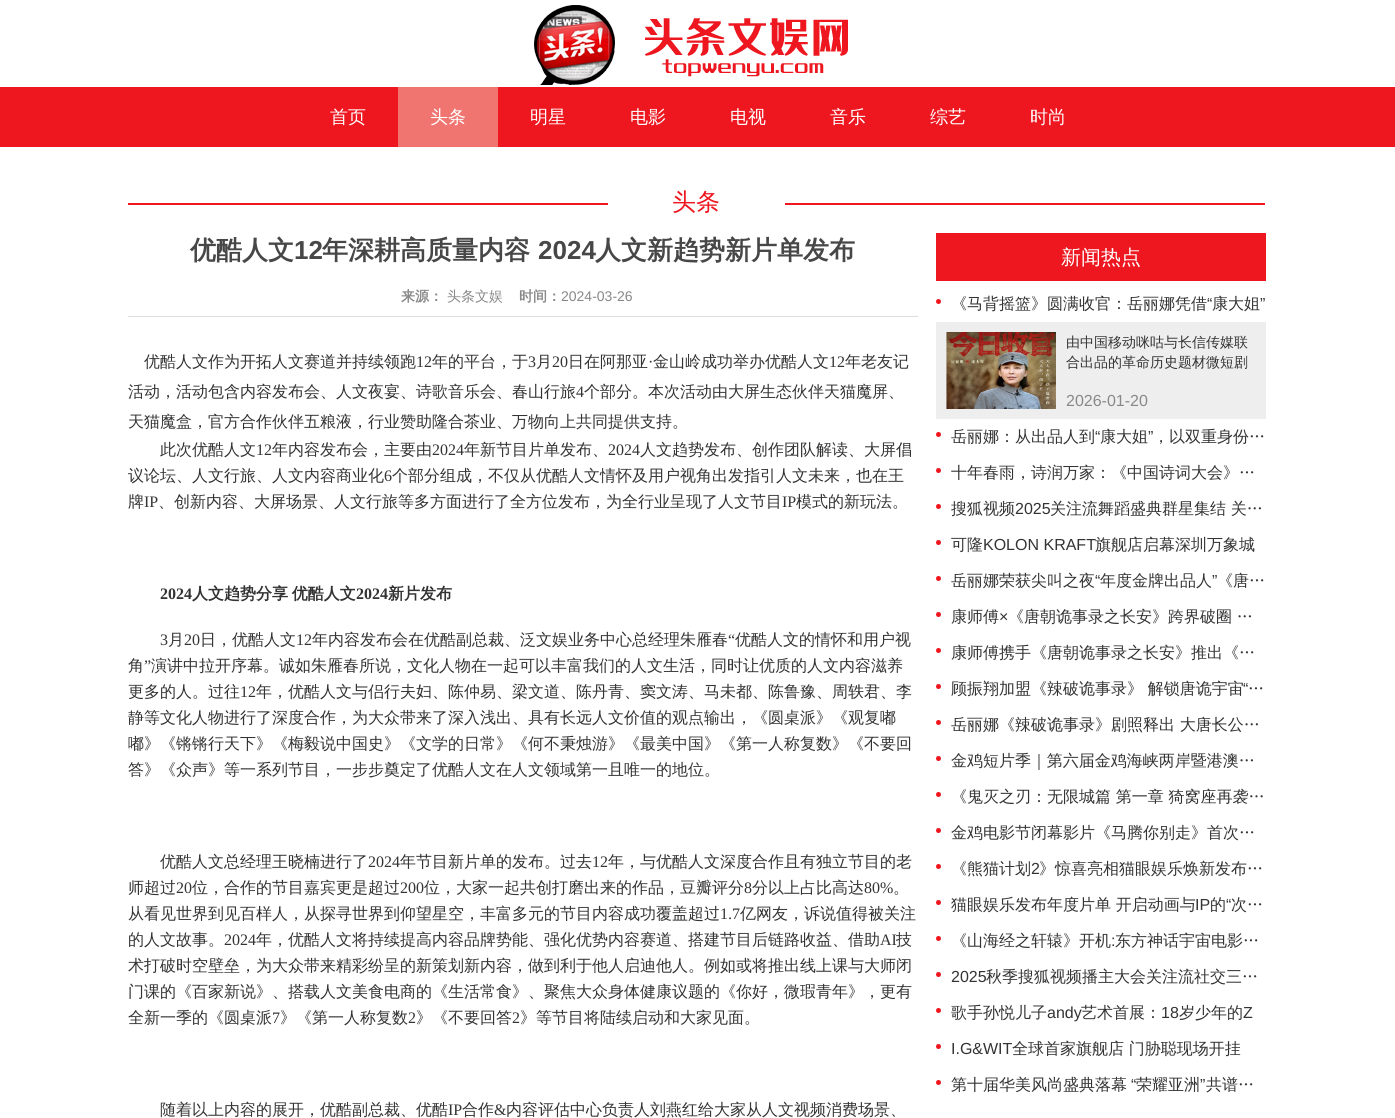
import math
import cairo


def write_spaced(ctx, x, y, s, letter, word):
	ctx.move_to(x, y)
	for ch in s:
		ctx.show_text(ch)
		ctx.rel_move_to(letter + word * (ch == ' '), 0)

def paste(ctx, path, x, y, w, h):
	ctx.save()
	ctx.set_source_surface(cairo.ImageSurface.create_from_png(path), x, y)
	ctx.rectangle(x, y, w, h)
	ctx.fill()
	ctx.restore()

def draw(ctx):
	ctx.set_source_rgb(1, 1, 1)
	ctx.paint()
	paste(ctx, 'media/1.png', 534, 5, 314, 80)
	ctx.set_source_rgb(0.933, 0.086, 0.122)
	ctx.rectangle(0, 87, 1395, 60)
	ctx.fill()
	ctx.select_font_face('WenQuanYi Zen Hei Medium')
	ctx.set_font_size(18)
	ctx.set_source_rgb(1, 1, 1)
	ctx.move_to(330, 123)
	ctx.show_text('首页')
	ctx.set_source_rgb(0.941, 0.459, 0.439)
	ctx.rectangle(398, 87, 100, 60)
	ctx.fill()
	ctx.set_source_rgb(1, 1, 1)
	for x, y, s in [
		(430, 123, '头条'),
		(530, 123, '明星'),
		(630, 123, '电影'),
		(730, 123, '电视'),
		(830, 123, '音乐'),
		(930, 123, '综艺'),
		(1030, 123, '时尚'),
	]:
		ctx.move_to(x, y)
		ctx.show_text(s)
	ctx.set_source_rgb(0.933, 0.086, 0.122)
	ctx.rectangle(128, 203, 480, 2)
	ctx.fill()
	ctx.set_font_size(24)
	ctx.move_to(672, 210)
	ctx.show_text('头条')
	ctx.rectangle(785, 203, 480, 2)
	ctx.fill()
	ctx.select_font_face('WenQuanYi Zen Hei', cairo.FONT_SLANT_NORMAL, cairo.FONT_WEIGHT_BOLD)
	ctx.set_font_size(26)
	ctx.set_source_rgb(0.278, 0.278, 0.278)
	ctx.move_to(190, 259)
	ctx.show_text('优酷人文')
	ctx.select_font_face('Liberation Sans', cairo.FONT_SLANT_NORMAL, cairo.FONT_WEIGHT_BOLD)
	ctx.move_to(294, 259)
	ctx.show_text('12')
	ctx.select_font_face('WenQuanYi Zen Hei', cairo.FONT_SLANT_NORMAL, cairo.FONT_WEIGHT_BOLD)
	ctx.move_to(322, 259)
	ctx.show_text('年深耕高质量内容')
	ctx.select_font_face('Liberation Sans', cairo.FONT_SLANT_NORMAL, cairo.FONT_WEIGHT_BOLD)
	ctx.move_to(538, 259)
	ctx.show_text('2024')
	ctx.select_font_face('WenQuanYi Zen Hei', cairo.FONT_SLANT_NORMAL, cairo.FONT_WEIGHT_BOLD)
	ctx.move_to(595, 259)
	ctx.show_text('人文新趋势新片单发布')
	ctx.set_source_rgb(0.867, 0.867, 0.867)
	ctx.rectangle(128, 316, 790, 1)
	ctx.fill()
	ctx.set_font_size(14)
	ctx.set_source_rgb(0.533, 0.533, 0.533)
	ctx.move_to(401, 301)
	ctx.show_text('来源：')
	ctx.select_font_face('WenQuanYi Zen Hei Medium')
	ctx.move_to(447, 301)
	ctx.show_text('头条文娱')
	ctx.select_font_face('WenQuanYi Zen Hei', cairo.FONT_SLANT_NORMAL, cairo.FONT_WEIGHT_BOLD)
	ctx.move_to(519, 301)
	ctx.show_text('时间：')
	ctx.select_font_face('Liberation Sans')
	ctx.move_to(561, 301)
	ctx.show_text('2024-03-26')
	ctx.select_font_face('WenQuanYi Zen Hei Medium')
	ctx.set_font_size(16)
	ctx.set_source_rgb(0.2, 0.2, 0.2)
	ctx.move_to(144, 367)
	ctx.show_text('优酷人文作为开拓人文赛道并持续领跑')
	ctx.select_font_face('Liberation Serif')
	ctx.move_to(416, 367)
	ctx.show_text('12')
	ctx.select_font_face('WenQuanYi Zen Hei Medium')
	ctx.move_to(432, 367)
	ctx.show_text('年的平台，于')
	ctx.select_font_face('Liberation Serif')
	ctx.move_to(528, 367)
	ctx.show_text('3')
	ctx.select_font_face('WenQuanYi Zen Hei Medium')
	ctx.move_to(536, 367)
	ctx.show_text('月')
	ctx.select_font_face('Liberation Serif')
	ctx.move_to(552, 367)
	ctx.show_text('20')
	ctx.select_font_face('WenQuanYi Zen Hei Medium')
	ctx.move_to(568, 367)
	ctx.show_text('日在阿那亚')
	ctx.select_font_face('Liberation Serif')
	ctx.move_to(648, 367)
	ctx.show_text('·')
	ctx.select_font_face('WenQuanYi Zen Hei Medium')
	ctx.move_to(653, 367)
	ctx.show_text('金山岭成功举办优酷人文')
	ctx.select_font_face('Liberation Serif')
	ctx.move_to(829, 367)
	ctx.show_text('12')
	ctx.select_font_face('WenQuanYi Zen Hei Medium')
	ctx.move_to(845, 367)
	ctx.show_text('年老友记')
	ctx.move_to(128, 397)
	ctx.show_text('活动，活动包含内容发布会、人文夜宴、诗歌音乐会、春山行旅')
	ctx.select_font_face('Liberation Serif')
	ctx.move_to(576, 397)
	ctx.show_text('4')
	ctx.select_font_face('WenQuanYi Zen Hei Medium')
	for x, y, s in [
		(584, 397, '个部分。本次活动由大屏生态伙伴天猫魔屏、'),
		(128, 427, '天猫魔盒，官方合作伙伴五粮液，行业赞助隆合茶业、万物向上共同提供支持。'),
		(160, 455, '此次优酷人文'),
	]:
		ctx.move_to(x, y)
		ctx.show_text(s)
	ctx.select_font_face('Liberation Serif')
	ctx.move_to(256, 455)
	ctx.show_text('12')
	ctx.select_font_face('WenQuanYi Zen Hei Medium')
	ctx.move_to(272, 455)
	ctx.show_text('年内容发布会，主要由')
	ctx.select_font_face('Liberation Serif')
	ctx.move_to(432, 455)
	ctx.show_text('2024')
	ctx.select_font_face('WenQuanYi Zen Hei Medium')
	ctx.move_to(464, 455)
	ctx.show_text('年新节目片单发布、')
	ctx.select_font_face('Liberation Serif')
	ctx.move_to(608, 455)
	ctx.show_text('2024')
	ctx.select_font_face('WenQuanYi Zen Hei Medium')
	ctx.move_to(640, 455)
	ctx.show_text('人文趋势发布、创作团队解读、大屏倡')
	ctx.move_to(128, 481)
	ctx.show_text('议论坛、人文行旅、人文内容商业化')
	ctx.select_font_face('Liberation Serif')
	ctx.move_to(384, 481)
	ctx.show_text('6')
	ctx.select_font_face('WenQuanYi Zen Hei Medium')
	ctx.move_to(392, 481)
	ctx.show_text('个部分组成，不仅从优酷人文情怀及用户视角出发指引人文未来，也在王')
	ctx.move_to(128, 507)
	ctx.show_text('牌')
	ctx.select_font_face('Liberation Serif')
	ctx.move_to(144, 507)
	ctx.show_text('IP')
	ctx.select_font_face('WenQuanYi Zen Hei Medium')
	ctx.move_to(158, 507)
	ctx.show_text('、创新内容、大屏场景、人文行旅等多方面进行了全方位发布，为全行业呈现了人文节目')
	ctx.select_font_face('Liberation Serif')
	ctx.move_to(782, 507)
	ctx.show_text('IP')
	ctx.select_font_face('WenQuanYi Zen Hei Medium')
	ctx.move_to(796, 507)
	ctx.show_text('模式的新玩法。')
	ctx.select_font_face('Liberation Serif', cairo.FONT_SLANT_NORMAL, cairo.FONT_WEIGHT_BOLD)
	ctx.move_to(160, 599)
	ctx.show_text('2024')
	ctx.select_font_face('WenQuanYi Zen Hei', cairo.FONT_SLANT_NORMAL, cairo.FONT_WEIGHT_BOLD)
	write_spaced(ctx, 192, 599, '人文趋势分享 优酷人文', 0, -1)
	ctx.select_font_face('Liberation Serif', cairo.FONT_SLANT_NORMAL, cairo.FONT_WEIGHT_BOLD)
	ctx.move_to(356, 599)
	ctx.show_text('2024')
	ctx.select_font_face('WenQuanYi Zen Hei', cairo.FONT_SLANT_NORMAL, cairo.FONT_WEIGHT_BOLD)
	ctx.move_to(388, 599)
	ctx.show_text('新片发布')
	ctx.select_font_face('Liberation Serif')
	ctx.move_to(160, 645)
	ctx.show_text('3')
	ctx.select_font_face('WenQuanYi Zen Hei Medium')
	ctx.move_to(168, 645)
	ctx.show_text('月')
	ctx.select_font_face('Liberation Serif')
	ctx.move_to(184, 645)
	ctx.show_text('20')
	ctx.select_font_face('WenQuanYi Zen Hei Medium')
	ctx.move_to(200, 645)
	ctx.show_text('日，优酷人文')
	ctx.select_font_face('Liberation Serif')
	ctx.move_to(296, 645)
	ctx.show_text('12')
	ctx.select_font_face('WenQuanYi Zen Hei Medium')
	ctx.move_to(312, 645)
	ctx.show_text('年内容发布会在优酷副总裁、泛文娱业务中心总经理朱雁春')
	ctx.select_font_face('Liberation Serif')
	ctx.move_to(728, 645)
	ctx.show_text('“')
	ctx.select_font_face('WenQuanYi Zen Hei Medium')
	ctx.move_to(735, 645)
	ctx.show_text('优酷人文的情怀和用户视')
	ctx.move_to(128, 671)
	ctx.show_text('角')
	ctx.select_font_face('Liberation Serif')
	ctx.move_to(144, 671)
	ctx.show_text('”')
	ctx.select_font_face('WenQuanYi Zen Hei Medium')
	ctx.move_to(151, 671)
	ctx.show_text('演讲中拉开序幕。诚如朱雁春所说，文化人物在一起可以丰富我们的人文生活，同时让优质的人文内容滋养')
	ctx.move_to(128, 697)
	ctx.show_text('更多的人。过往')
	ctx.select_font_face('Liberation Serif')
	ctx.move_to(240, 697)
	ctx.show_text('12')
	ctx.select_font_face('WenQuanYi Zen Hei Medium')
	for x, y, s in [
		(256, 697, '年，优酷人文与侣行夫妇、陈仲易、梁文道、陈丹青、窦文涛、马未都、陈鲁豫、周轶君、李'),
		(128, 723, '静等文化人物进行了深度合作，为大众带来了深入浅出、具有长远人文价值的观点输出，《圆桌派》《观复嘟'),
		(128, 749, '嘟》《锵锵行天下》《梅毅说中国史》《文学的日常》《何不秉烛游》《最美中国》《第一人称复数》《不要回'),
		(128, 775, '答》《众声》等一系列节目，一步步奠定了优酷人文在人文领域第一且唯一的地位。'),
		(160, 867, '优酷人文总经理王晓楠进行了'),
	]:
		ctx.move_to(x, y)
		ctx.show_text(s)
	ctx.select_font_face('Liberation Serif')
	ctx.move_to(368, 867)
	ctx.show_text('2024')
	ctx.select_font_face('WenQuanYi Zen Hei Medium')
	ctx.move_to(400, 867)
	ctx.show_text('年节目新片单的发布。过去')
	ctx.select_font_face('Liberation Serif')
	ctx.move_to(592, 867)
	ctx.show_text('12')
	ctx.select_font_face('WenQuanYi Zen Hei Medium')
	ctx.move_to(608, 867)
	ctx.show_text('年，与优酷人文深度合作且有独立节目的老')
	ctx.move_to(128, 893)
	ctx.show_text('师超过')
	ctx.select_font_face('Liberation Serif')
	ctx.move_to(176, 893)
	ctx.show_text('20')
	ctx.select_font_face('WenQuanYi Zen Hei Medium')
	ctx.move_to(192, 893)
	ctx.show_text('位，合作的节目嘉宾更是超过')
	ctx.select_font_face('Liberation Serif')
	ctx.move_to(400, 893)
	ctx.show_text('200')
	ctx.select_font_face('WenQuanYi Zen Hei Medium')
	ctx.move_to(424, 893)
	ctx.show_text('位，大家一起共创打磨出来的作品，豆瓣评分')
	ctx.select_font_face('Liberation Serif')
	ctx.move_to(744, 893)
	ctx.show_text('8')
	ctx.select_font_face('WenQuanYi Zen Hei Medium')
	ctx.move_to(752, 893)
	ctx.show_text('分以上占比高达')
	ctx.select_font_face('Liberation Serif')
	ctx.move_to(864, 893)
	ctx.show_text('80%')
	ctx.select_font_face('WenQuanYi Zen Hei Medium')
	ctx.move_to(893, 893)
	ctx.show_text('。')
	ctx.move_to(128, 919)
	ctx.show_text('从看见世界到见百样人，从探寻世界到仰望星空，丰富多元的节目内容成功覆盖超过')
	ctx.select_font_face('Liberation Serif')
	ctx.move_to(720, 919)
	ctx.show_text('1.7')
	ctx.select_font_face('WenQuanYi Zen Hei Medium')
	ctx.move_to(740, 919)
	ctx.show_text('亿网友，诉说值得被关注')
	ctx.move_to(128, 945)
	ctx.show_text('的人文故事。')
	ctx.select_font_face('Liberation Serif')
	ctx.move_to(224, 945)
	ctx.show_text('2024')
	ctx.select_font_face('WenQuanYi Zen Hei Medium')
	ctx.move_to(256, 945)
	ctx.show_text('年，优酷人文将持续提高内容品牌势能、强化优势内容赛道、搭建节目后链路收益、借助')
	ctx.select_font_face('Liberation Serif')
	ctx.move_to(880, 945)
	ctx.show_text('AI')
	ctx.select_font_face('WenQuanYi Zen Hei Medium')
	for x, y, s in [
		(896, 945, '技'),
		(128, 971, '术打破时空壁垒，为大众带来精彩纷呈的新策划新内容，做到利于他人启迪他人。例如或将推出线上课与大师闭'),
		(128, 997, '门课的《百家新说》、搭载人文美食电商的《生活常食》、聚焦大众身体健康议题的《你好，微瑕青年》，更有'),
		(128, 1023, '全新一季的《圆桌派'),
	]:
		ctx.move_to(x, y)
		ctx.show_text(s)
	ctx.select_font_face('Liberation Serif')
	ctx.move_to(272, 1023)
	ctx.show_text('7')
	ctx.select_font_face('WenQuanYi Zen Hei Medium')
	ctx.move_to(280, 1023)
	ctx.show_text('》《第一人称复数')
	ctx.select_font_face('Liberation Serif')
	ctx.move_to(408, 1023)
	ctx.show_text('2')
	ctx.select_font_face('WenQuanYi Zen Hei Medium')
	ctx.move_to(416, 1023)
	ctx.show_text('》《不要回答')
	ctx.select_font_face('Liberation Serif')
	ctx.move_to(512, 1023)
	ctx.show_text('2')
	ctx.select_font_face('WenQuanYi Zen Hei Medium')
	ctx.move_to(520, 1023)
	ctx.show_text('》等节目将陆续启动和大家见面。')
	ctx.move_to(160, 1115)
	ctx.show_text('随着以上内容的展开，优酷副总裁、优酷')
	ctx.select_font_face('Liberation Serif')
	ctx.move_to(448, 1115)
	ctx.show_text('IP')
	ctx.select_font_face('WenQuanYi Zen Hei Medium')
	ctx.move_to(462, 1115)
	ctx.show_text('合作')
	ctx.select_font_face('Liberation Serif')
	ctx.move_to(494, 1115)
	ctx.show_text('&')
	ctx.select_font_face('WenQuanYi Zen Hei Medium')
	ctx.move_to(506, 1115)
	ctx.show_text('内容评估中心负责人刘燕红给大家从人文视频消费场景、')
	ctx.set_source_rgb(0.933, 0.086, 0.122)
	ctx.rectangle(936, 233, 330, 48)
	ctx.fill()
	ctx.set_font_size(20)
	ctx.set_source_rgb(1, 1, 1)
	ctx.move_to(1061, 264)
	ctx.show_text('新闻热点')
	ctx.set_source_rgb(0.933, 0.086, 0.122)
	ctx.new_path()
	ctx.arc(938.5, 301.5, 2.5, 0, 2 * math.pi)
	ctx.fill()
	ctx.set_font_size(16)
	ctx.set_source_rgb(0.2, 0.2, 0.2)
	ctx.move_to(951, 309)
	ctx.show_text('《马背摇篮》圆满收官：岳丽娜凭借')
	ctx.select_font_face('Liberation Sans')
	ctx.move_to(1207, 309)
	ctx.show_text('“')
	ctx.select_font_face('WenQuanYi Zen Hei Medium')
	ctx.move_to(1212, 309)
	ctx.show_text('康大姐')
	ctx.select_font_face('Liberation Sans')
	ctx.move_to(1260, 309)
	ctx.show_text('”')
	ctx.set_source_rgb(0.933, 0.933, 0.933)
	ctx.rectangle(936, 322, 330, 97)
	ctx.fill()
	paste(ctx, 'media/2.png', 946, 332, 110, 77)
	ctx.select_font_face('WenQuanYi Zen Hei Medium')
	ctx.set_font_size(14)
	ctx.set_source_rgb(0.2, 0.2, 0.2)
	ctx.move_to(1066, 347)
	ctx.show_text('由中国移动咪咕与长信传媒联')
	ctx.move_to(1066, 367)
	ctx.show_text('合出品的革命历史题材微短剧')
	ctx.select_font_face('Liberation Sans')
	ctx.set_font_size(16)
	ctx.set_source_rgb(0.533, 0.533, 0.533)
	ctx.move_to(1066, 406)
	ctx.show_text('2026-01-20')
	ctx.set_source_rgb(0.933, 0.086, 0.122)
	ctx.new_path()
	ctx.arc(938.5, 434.5, 2.5, 0, 2 * math.pi)
	ctx.fill()
	ctx.select_font_face('WenQuanYi Zen Hei Medium')
	ctx.set_source_rgb(0.2, 0.2, 0.2)
	ctx.move_to(951, 442)
	ctx.show_text('岳丽娜：从出品人到')
	ctx.select_font_face('Liberation Sans')
	ctx.move_to(1095, 442)
	ctx.show_text('“')
	ctx.select_font_face('WenQuanYi Zen Hei Medium')
	ctx.move_to(1100, 442)
	ctx.show_text('康大姐')
	ctx.select_font_face('Liberation Sans')
	ctx.move_to(1148, 442)
	ctx.show_text('”')
	ctx.select_font_face('WenQuanYi Zen Hei Medium')
	ctx.move_to(1153, 442)
	ctx.show_text('，以双重身份…')
	ctx.set_source_rgb(0.933, 0.086, 0.122)
	ctx.new_path()
	ctx.arc(938.5, 470.5, 2.5, 0, 2 * math.pi)
	ctx.fill()
	ctx.set_source_rgb(0.2, 0.2, 0.2)
	ctx.move_to(951, 478)
	ctx.show_text('十年春雨，诗润万家：《中国诗词大会》…')
	ctx.set_source_rgb(0.933, 0.086, 0.122)
	ctx.new_path()
	ctx.arc(938.5, 506.5, 2.5, 0, 2 * math.pi)
	ctx.fill()
	ctx.set_source_rgb(0.2, 0.2, 0.2)
	ctx.move_to(951, 514)
	ctx.show_text('搜狐视频')
	ctx.select_font_face('Liberation Sans')
	ctx.move_to(1015, 514)
	ctx.show_text('2025')
	ctx.select_font_face('WenQuanYi Zen Hei Medium')
	ctx.move_to(1050, 514)
	ctx.show_text('关注流舞蹈盛典群星集结 关…')
	ctx.set_source_rgb(0.933, 0.086, 0.122)
	ctx.new_path()
	ctx.arc(938.5, 542.5, 2.5, 0, 2 * math.pi)
	ctx.fill()
	ctx.set_source_rgb(0.2, 0.2, 0.2)
	ctx.move_to(951, 550)
	ctx.show_text('可隆')
	ctx.select_font_face('Liberation Sans')
	ctx.move_to(983, 550)
	ctx.show_text('KOLON KRAFT')
	ctx.select_font_face('WenQuanYi Zen Hei Medium')
	ctx.move_to(1095, 550)
	ctx.show_text('旗舰店启幕深圳万象城')
	ctx.set_source_rgb(0.933, 0.086, 0.122)
	ctx.new_path()
	ctx.arc(938.5, 578.5, 2.5, 0, 2 * math.pi)
	ctx.fill()
	ctx.set_source_rgb(0.2, 0.2, 0.2)
	ctx.move_to(951, 586)
	ctx.show_text('岳丽娜荣获尖叫之夜')
	ctx.select_font_face('Liberation Sans')
	ctx.move_to(1095, 586)
	ctx.show_text('“')
	ctx.select_font_face('WenQuanYi Zen Hei Medium')
	ctx.move_to(1100, 586)
	ctx.show_text('年度金牌出品人')
	ctx.select_font_face('Liberation Sans')
	ctx.move_to(1212, 586)
	ctx.show_text('”')
	ctx.select_font_face('WenQuanYi Zen Hei Medium')
	ctx.move_to(1217, 586)
	ctx.show_text('《唐…')
	ctx.set_source_rgb(0.933, 0.086, 0.122)
	ctx.new_path()
	ctx.arc(938.5, 614.5, 2.5, 0, 2 * math.pi)
	ctx.fill()
	ctx.set_source_rgb(0.2, 0.2, 0.2)
	ctx.move_to(951, 622)
	ctx.show_text('康师傅')
	ctx.select_font_face('Liberation Sans')
	ctx.move_to(999, 622)
	ctx.show_text('×')
	ctx.select_font_face('WenQuanYi Zen Hei Medium')
	ctx.move_to(1008, 622)
	ctx.show_text('《唐朝诡事录之长安》跨界破圈 …')
	ctx.set_source_rgb(0.933, 0.086, 0.122)
	ctx.new_path()
	ctx.arc(938.5, 650.5, 2.5, 0, 2 * math.pi)
	ctx.fill()
	ctx.set_source_rgb(0.2, 0.2, 0.2)
	ctx.move_to(951, 658)
	ctx.show_text('康师傅携手《唐朝诡事录之长安》推出《…')
	ctx.set_source_rgb(0.933, 0.086, 0.122)
	ctx.new_path()
	ctx.arc(938.5, 686.5, 2.5, 0, 2 * math.pi)
	ctx.fill()
	ctx.set_source_rgb(0.2, 0.2, 0.2)
	ctx.move_to(951, 694)
	ctx.show_text('顾振翔加盟《辣破诡事录》 解锁唐诡宇宙')
	ctx.select_font_face('Liberation Sans')
	ctx.move_to(1243, 694)
	ctx.show_text('“')
	ctx.select_font_face('WenQuanYi Zen Hei Medium')
	ctx.move_to(1248, 694)
	ctx.show_text('…')
	ctx.set_source_rgb(0.933, 0.086, 0.122)
	ctx.new_path()
	ctx.arc(938.5, 722.5, 2.5, 0, 2 * math.pi)
	ctx.fill()
	ctx.set_source_rgb(0.2, 0.2, 0.2)
	ctx.move_to(951, 730)
	ctx.show_text('岳丽娜《辣破诡事录》剧照释出 大唐长公…')
	ctx.set_source_rgb(0.933, 0.086, 0.122)
	ctx.new_path()
	ctx.arc(938.5, 758.5, 2.5, 0, 2 * math.pi)
	ctx.fill()
	ctx.set_source_rgb(0.2, 0.2, 0.2)
	ctx.move_to(951, 766)
	ctx.show_text('金鸡短片季｜第六届金鸡海峡两岸暨港澳…')
	ctx.set_source_rgb(0.933, 0.086, 0.122)
	ctx.new_path()
	ctx.arc(938.5, 794.5, 2.5, 0, 2 * math.pi)
	ctx.fill()
	ctx.set_source_rgb(0.2, 0.2, 0.2)
	ctx.move_to(951, 802)
	ctx.show_text('《鬼灭之刃：无限城篇 第一章 猗窝座再袭…')
	ctx.set_source_rgb(0.933, 0.086, 0.122)
	ctx.new_path()
	ctx.arc(938.5, 830.5, 2.5, 0, 2 * math.pi)
	ctx.fill()
	ctx.set_source_rgb(0.2, 0.2, 0.2)
	ctx.move_to(951, 838)
	ctx.show_text('金鸡电影节闭幕影片《马腾你别走》首次…')
	ctx.set_source_rgb(0.933, 0.086, 0.122)
	ctx.new_path()
	ctx.arc(938.5, 866.5, 2.5, 0, 2 * math.pi)
	ctx.fill()
	ctx.set_source_rgb(0.2, 0.2, 0.2)
	ctx.move_to(951, 874)
	ctx.show_text('《熊猫计划')
	ctx.select_font_face('Liberation Sans')
	ctx.move_to(1031, 874)
	ctx.show_text('2')
	ctx.select_font_face('WenQuanYi Zen Hei Medium')
	ctx.move_to(1039, 874)
	ctx.show_text('》惊喜亮相猫眼娱乐焕新发布…')
	ctx.set_source_rgb(0.933, 0.086, 0.122)
	ctx.new_path()
	ctx.arc(938.5, 902.5, 2.5, 0, 2 * math.pi)
	ctx.fill()
	ctx.set_source_rgb(0.2, 0.2, 0.2)
	ctx.move_to(951, 910)
	ctx.show_text('猫眼娱乐发布年度片单 开启动画与')
	ctx.select_font_face('Liberation Sans')
	ctx.move_to(1195, 910)
	ctx.show_text('IP')
	ctx.select_font_face('WenQuanYi Zen Hei Medium')
	ctx.move_to(1210, 910)
	ctx.show_text('的')
	ctx.select_font_face('Liberation Sans')
	ctx.move_to(1226, 910)
	ctx.show_text('“')
	ctx.select_font_face('WenQuanYi Zen Hei Medium')
	ctx.move_to(1231, 910)
	ctx.show_text('次…')
	ctx.set_source_rgb(0.933, 0.086, 0.122)
	ctx.new_path()
	ctx.arc(938.5, 938.5, 2.5, 0, 2 * math.pi)
	ctx.fill()
	ctx.set_source_rgb(0.2, 0.2, 0.2)
	ctx.move_to(951, 946)
	ctx.show_text('《山海经之轩辕》开机')
	ctx.select_font_face('Liberation Sans')
	ctx.move_to(1111, 946)
	ctx.show_text(':')
	ctx.select_font_face('WenQuanYi Zen Hei Medium')
	ctx.move_to(1115, 946)
	ctx.show_text('东方神话宇宙电影…')
	ctx.set_source_rgb(0.933, 0.086, 0.122)
	ctx.new_path()
	ctx.arc(938.5, 974.5, 2.5, 0, 2 * math.pi)
	ctx.fill()
	ctx.select_font_face('Liberation Sans')
	ctx.set_source_rgb(0.2, 0.2, 0.2)
	ctx.move_to(951, 982)
	ctx.show_text('2025')
	ctx.select_font_face('WenQuanYi Zen Hei Medium')
	ctx.move_to(986, 982)
	ctx.show_text('秋季搜狐视频播主大会关注流社交三…')
	ctx.set_source_rgb(0.933, 0.086, 0.122)
	ctx.new_path()
	ctx.arc(938.5, 1010.5, 2.5, 0, 2 * math.pi)
	ctx.fill()
	ctx.set_source_rgb(0.2, 0.2, 0.2)
	ctx.move_to(951, 1018)
	ctx.show_text('歌手孙悦儿子')
	ctx.select_font_face('Liberation Sans')
	ctx.move_to(1047, 1018)
	ctx.show_text('andy')
	ctx.select_font_face('WenQuanYi Zen Hei Medium')
	ctx.move_to(1081, 1018)
	ctx.show_text('艺术首展：')
	ctx.select_font_face('Liberation Sans')
	ctx.move_to(1161, 1018)
	ctx.show_text('18')
	ctx.select_font_face('WenQuanYi Zen Hei Medium')
	ctx.move_to(1179, 1018)
	ctx.show_text('岁少年的')
	ctx.select_font_face('Liberation Sans')
	ctx.move_to(1243, 1018)
	ctx.show_text('Z')
	ctx.set_source_rgb(0.933, 0.086, 0.122)
	ctx.new_path()
	ctx.arc(938.5, 1046.5, 2.5, 0, 2 * math.pi)
	ctx.fill()
	ctx.set_source_rgb(0.2, 0.2, 0.2)
	ctx.move_to(951, 1054)
	ctx.show_text('I.G&WIT')
	ctx.select_font_face('WenQuanYi Zen Hei Medium')
	ctx.move_to(1012, 1054)
	ctx.show_text('全球首家旗舰店 门胁聪现场开挂')
	ctx.set_source_rgb(0.933, 0.086, 0.122)
	ctx.new_path()
	ctx.arc(938.5, 1082.5, 2.5, 0, 2 * math.pi)
	ctx.fill()
	ctx.set_source_rgb(0.2, 0.2, 0.2)
	ctx.move_to(951, 1090)
	ctx.show_text('第十届华美风尚盛典落幕')
	ctx.select_font_face('Liberation Sans')
	ctx.move_to(1131, 1090)
	ctx.show_text('“')
	ctx.select_font_face('WenQuanYi Zen Hei Medium')
	ctx.move_to(1136, 1090)
	ctx.show_text('荣耀亚洲')
	ctx.select_font_face('Liberation Sans')
	ctx.move_to(1200, 1090)
	ctx.show_text('”')
	ctx.select_font_face('WenQuanYi Zen Hei Medium')
	ctx.move_to(1206, 1090)
	ctx.show_text('共谱…')


surface = cairo.ImageSurface(cairo.FORMAT_RGB24, 1395, 1118)
ctx = cairo.Context(surface)
options = cairo.FontOptions()
options.set_hint_metrics(cairo.HINT_METRICS_OFF)
options.set_hint_style(cairo.HINT_STYLE_NONE)
ctx.set_font_options(options)
ctx.set_miter_limit(4)
draw(ctx)
surface.write_to_png('image.png')
